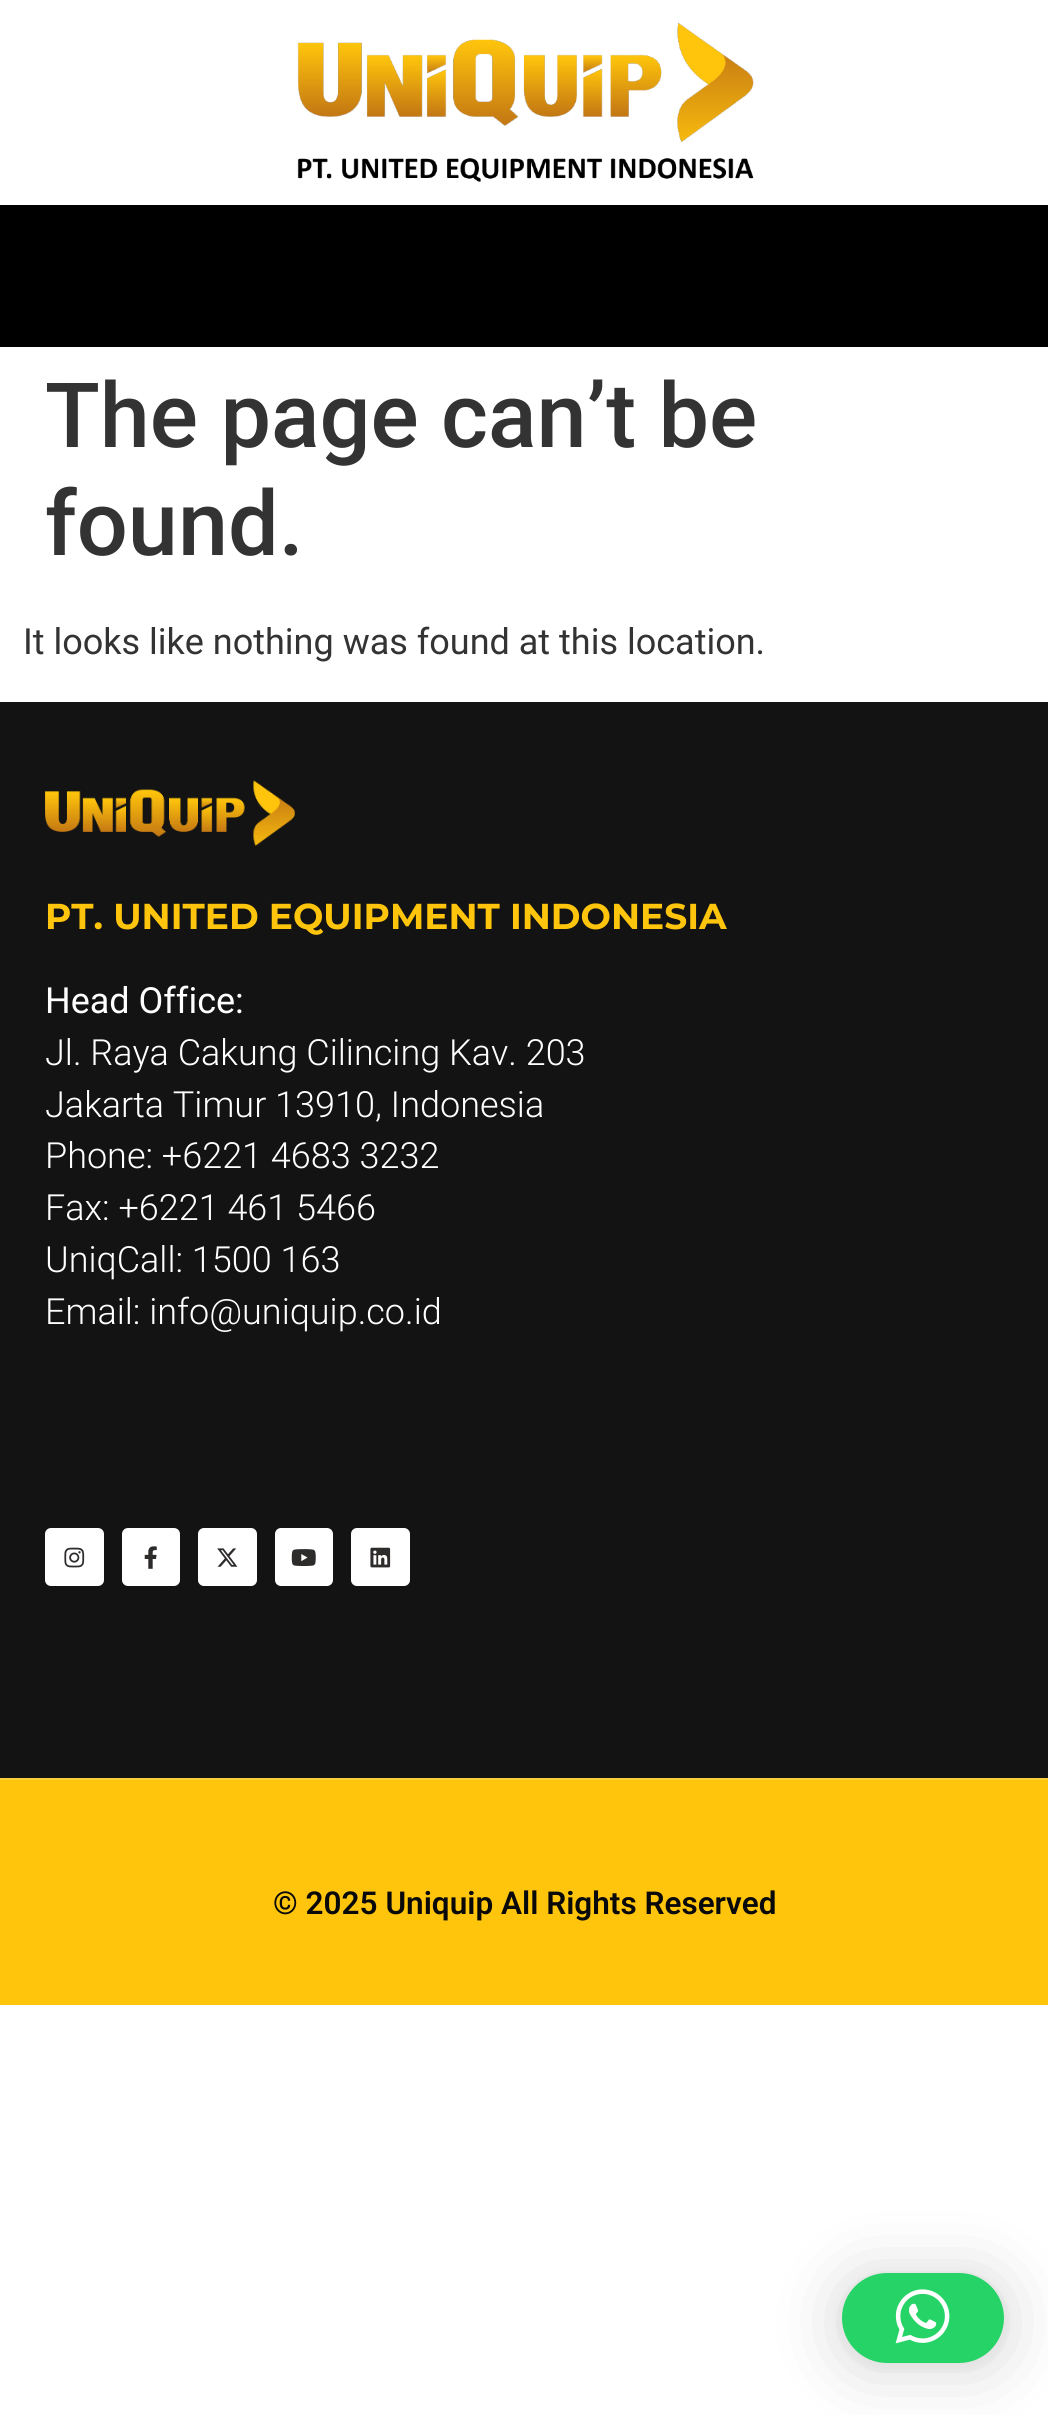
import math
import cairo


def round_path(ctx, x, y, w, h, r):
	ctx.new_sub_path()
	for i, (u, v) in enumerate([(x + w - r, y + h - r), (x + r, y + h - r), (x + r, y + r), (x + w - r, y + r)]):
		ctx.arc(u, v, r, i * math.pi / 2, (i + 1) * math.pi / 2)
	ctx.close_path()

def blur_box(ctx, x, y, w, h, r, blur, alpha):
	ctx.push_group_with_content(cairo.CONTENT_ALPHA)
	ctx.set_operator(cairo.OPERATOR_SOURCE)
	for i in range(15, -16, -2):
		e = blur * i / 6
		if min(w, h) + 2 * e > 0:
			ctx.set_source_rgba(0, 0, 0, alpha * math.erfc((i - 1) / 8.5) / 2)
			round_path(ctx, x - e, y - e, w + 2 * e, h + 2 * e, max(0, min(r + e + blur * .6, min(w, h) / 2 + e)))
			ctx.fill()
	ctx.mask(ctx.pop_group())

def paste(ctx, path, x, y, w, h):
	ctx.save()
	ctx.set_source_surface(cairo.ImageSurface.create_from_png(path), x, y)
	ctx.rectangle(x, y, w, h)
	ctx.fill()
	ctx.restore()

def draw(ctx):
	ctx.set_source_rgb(1, 1, 1)
	ctx.paint()
	paste(ctx, 'media/1.png', 297, 22, 457, 160)
	ctx.set_source_rgb(0, 0, 0)
	ctx.rectangle(0, 205, 1048, 142)
	ctx.fill()
	ctx.select_font_face('Roboto Medium')
	ctx.set_font_size(90)
	ctx.set_source_rgb(0.2, 0.2, 0.2)
	ctx.move_to(45, 447)
	ctx.show_text('The page can’t be')
	ctx.move_to(45, 555)
	ctx.show_text('found.')
	ctx.select_font_face('Roboto')
	ctx.set_font_size(36)
	ctx.move_to(23, 654)
	ctx.show_text('It looks like nothing was found at this location.')
	ctx.set_source_rgb(0.078, 0.078, 0.075)
	ctx.rectangle(0, 702, 1048, 1076)
	ctx.fill()
	paste(ctx, 'media/2.png', 45, 780, 250, 66)
	ctx.select_font_face('Montserrat', cairo.FONT_SLANT_NORMAL, cairo.FONT_WEIGHT_BOLD)
	ctx.set_source_rgb(1, 0.773, 0.047)
	ctx.move_to(45, 929)
	ctx.show_text('PT. UNITED EQUIPMENT INDONESIA')
	ctx.select_font_face('Roboto')
	ctx.set_source_rgb(1, 1, 1)
	ctx.move_to(45, 1013)
	ctx.show_text('Head Office:')
	ctx.select_font_face('Roboto Light')
	for x, y, s in [
		(45, 1065, 'Jl. Raya Cakung Cilincing Kav. 203'),
		(45, 1117, 'Jakarta Timur 13910, Indonesia'),
		(45, 1168, 'Phone: +6221 4683 3232'),
		(45, 1220, 'Fax: +6221 461 5466'),
		(45, 1272, 'UniqCall: 1500 163'),
		(45, 1324, 'Email: info@uniquip.co.id'),
	]:
		ctx.move_to(x, y)
		ctx.show_text(s)
	round_path(ctx, 45, 1528, 59, 58, 6)
	ctx.fill()
	paste(ctx, 'media/3.png', 64, 1547, 21, 21)
	round_path(ctx, 122, 1528, 58, 58, 6)
	ctx.fill()
	paste(ctx, 'media/4.png', 144, 1546, 13, 23)
	round_path(ctx, 198, 1528, 59, 58, 6)
	ctx.fill()
	paste(ctx, 'media/5.png', 217, 1548, 21, 19)
	round_path(ctx, 275, 1528, 58, 58, 6)
	ctx.fill()
	paste(ctx, 'media/6.png', 291, 1549, 25, 17)
	round_path(ctx, 351, 1528, 59, 58, 6)
	ctx.fill()
	paste(ctx, 'media/7.png', 370, 1547, 21, 21)
	ctx.set_source_rgb(1, 0.773, 0.047)
	ctx.rectangle(0, 1780, 1048, 225)
	ctx.fill()
	ctx.set_source_rgb(1, 0.816, 0.227)
	ctx.rectangle(0, 1778, 1048, 2)
	ctx.fill()
	ctx.select_font_face('Roboto SemiBold')
	ctx.set_font_size(31.5)
	ctx.set_source_rgb(0.039, 0.039, 0.039)
	ctx.move_to(273, 1914)
	ctx.show_text('© 2025 Uniquip All Rights Reserved')
	ctx.set_source_rgb(0, 0, 0)
	blur_box(ctx, 842, 2277, 162, 90, 45, 36, 0.16)
	blur_box(ctx, 842, 2275, 162, 90, 45, 7, 0.06)
	ctx.set_source_rgb(0.145, 0.827, 0.4)
	round_path(ctx, 842, 2273, 162, 90, 45)
	ctx.fill()
	paste(ctx, 'media/8.png', 895, 2289, 55, 55)


surface = cairo.ImageSurface(cairo.FORMAT_RGB24, 1048, 2415)
ctx = cairo.Context(surface)
options = cairo.FontOptions()
options.set_hint_metrics(cairo.HINT_METRICS_OFF)
options.set_hint_style(cairo.HINT_STYLE_NONE)
ctx.set_font_options(options)
ctx.set_miter_limit(4)
draw(ctx)
surface.write_to_png('image.png')
